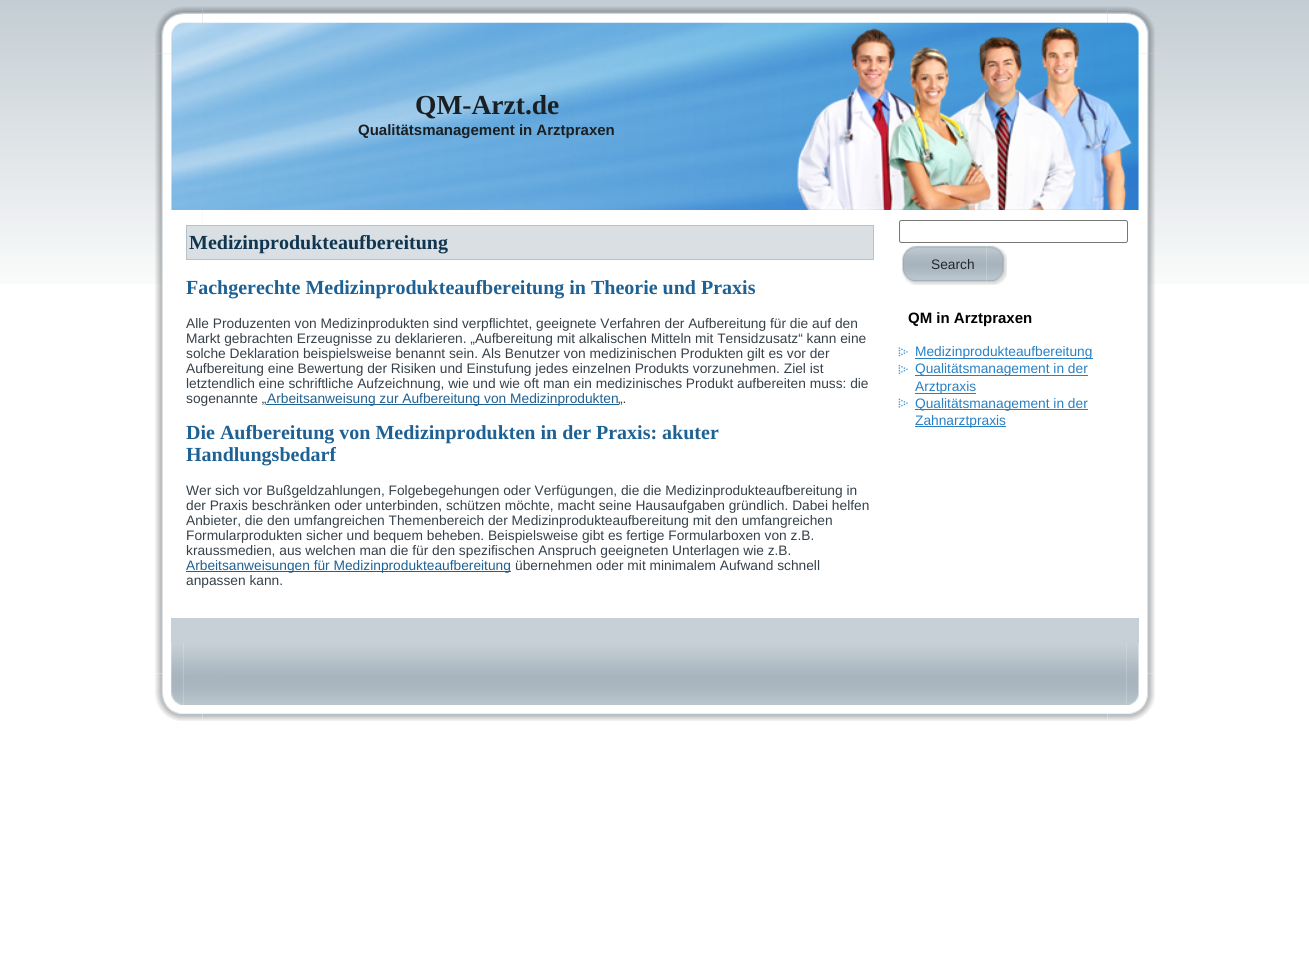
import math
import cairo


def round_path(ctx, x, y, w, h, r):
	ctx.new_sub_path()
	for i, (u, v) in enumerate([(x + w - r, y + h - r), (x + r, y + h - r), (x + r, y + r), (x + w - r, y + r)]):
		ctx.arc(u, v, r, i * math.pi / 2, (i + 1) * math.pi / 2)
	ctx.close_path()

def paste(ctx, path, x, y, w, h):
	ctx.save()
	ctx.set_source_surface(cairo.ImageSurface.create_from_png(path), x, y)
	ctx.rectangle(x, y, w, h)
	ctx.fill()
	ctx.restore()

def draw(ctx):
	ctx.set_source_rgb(1, 1, 1)
	ctx.paint()
	paste(ctx, 'media/1.png', 0, 0, 1309, 284)
	paste(ctx, 'media/2.png', 155, 6, 48, 48)
	paste(ctx, 'media/4.png', 1107, 6, 48, 48)
	paste(ctx, 'media/3.png', 202, 6, 906, 17)
	paste(ctx, 'media/18.png', 155, 673, 48, 48)
	paste(ctx, 'media/5.png', 155, 54, 48, 620)
	paste(ctx, 'media/20.png', 1107, 673, 48, 48)
	paste(ctx, 'media/17.png', 1108, 54, 47, 620)
	paste(ctx, 'media/6.png', 171, 22, 968, 188)
	paste(ctx, 'media/7.png', 186, 37, 938, 159)
	ctx.select_font_face('Liberation Serif', cairo.FONT_SLANT_NORMAL, cairo.FONT_WEIGHT_BOLD)
	ctx.set_font_size(27.5)
	ctx.set_source_rgb(0.102, 0.122, 0.137)
	ctx.move_to(415, 114)
	ctx.show_text('QM-Arzt.de')
	ctx.select_font_face('Liberation Sans', cairo.FONT_SLANT_NORMAL, cairo.FONT_WEIGHT_BOLD)
	ctx.set_font_size(15)
	ctx.move_to(358, 135)
	ctx.show_text('Qualitätsmanagement in Arztpraxen')
	paste(ctx, 'media/8.png', 797, 27, 335, 183)
	ctx.set_source_rgb(1, 1, 1)
	ctx.rectangle(203, 210, 905, 74)
	ctx.fill()
	ctx.set_source_rgb(0.851, 0.875, 0.89)
	ctx.rectangle(186.5, 225.5, 687, 34)
	ctx.fill_preserve()
	ctx.set_source_rgb(0.714, 0.757, 0.788)
	ctx.set_line_width(1)
	ctx.stroke()
	ctx.select_font_face('Liberation Serif', cairo.FONT_SLANT_NORMAL, cairo.FONT_WEIGHT_BOLD)
	ctx.set_font_size(20)
	ctx.set_source_rgb(0.063, 0.208, 0.314)
	ctx.move_to(189, 249)
	ctx.show_text('Medizinprodukteaufbereitung')
	ctx.set_source_rgb(0.118, 0.38, 0.58)
	ctx.move_to(186, 294)
	ctx.show_text('Fachgerechte Medizinprodukteaufbereitung in Theorie und Praxis')
	ctx.select_font_face('Liberation Sans')
	ctx.set_font_size(13.75)
	ctx.set_source_rgb(0.212, 0.255, 0.286)
	for x, y, s in [
		(186, 328, 'Alle Produzenten von Medizinprodukten sind verpflichtet, geeignete Verfahren der Aufbereitung für die auf den'),
		(186, 343, 'Markt gebrachten Erzeugnisse zu deklarieren. „Aufbereitung mit alkalischen Mitteln mit Tensidzusatz“ kann eine'),
		(186, 358, 'solche Deklaration beispielsweise benannt sein. Als Benutzer von medizinischen Produkten gilt es vor der'),
		(186, 373, 'Aufbereitung eine Bewertung der Risiken und Einstufung jedes einzelnen Produkts vorzunehmen. Ziel ist'),
		(186, 388, 'letztendlich eine schriftliche Aufzeichnung, wie und wie oft man ein medizinisches Produkt aufbereiten muss: die'),
		(186, 403, 'sogenannte „'),
	]:
		ctx.move_to(x, y)
		ctx.show_text(s)
	ctx.set_source_rgb(0.118, 0.38, 0.58)
	ctx.rectangle(266, 404, 353, 1)
	ctx.fill()
	ctx.move_to(267, 403)
	ctx.show_text('Arbeitsanweisung zur Aufbereitung von Medizinprodukten')
	ctx.set_source_rgb(0.212, 0.255, 0.286)
	ctx.move_to(618, 403)
	ctx.show_text('„.')
	ctx.select_font_face('Liberation Serif', cairo.FONT_SLANT_NORMAL, cairo.FONT_WEIGHT_BOLD)
	ctx.set_font_size(20)
	ctx.set_source_rgb(0.118, 0.38, 0.58)
	ctx.move_to(186, 439)
	ctx.show_text('Die Aufbereitung von Medizinprodukten in der Praxis: akuter')
	ctx.move_to(186, 461)
	ctx.show_text('Handlungsbedarf')
	ctx.select_font_face('Liberation Sans')
	ctx.set_font_size(13.75)
	ctx.set_source_rgb(0.212, 0.255, 0.286)
	for x, y, s in [
		(186, 495, 'Wer sich vor Bußgeldzahlungen, Folgebegehungen oder Verfügungen, die die Medizinprodukteaufbereitung in'),
		(186, 510, 'der Praxis beschränken oder unterbinden, schützen möchte, macht seine Hausaufgaben gründlich. Dabei helfen'),
		(186, 525, 'Anbieter, die den umfangreichen Themenbereich der Medizinprodukteaufbereitung mit den umfangreichen'),
		(186, 540, 'Formularprodukten sicher und bequem beheben. Beispielsweise gibt es fertige Formularboxen von z.B.'),
		(186, 555, 'kraussmedien, aus welchen man die für den spezifischen Anspruch geeigneten Unterlagen wie z.B.'),
	]:
		ctx.move_to(x, y)
		ctx.show_text(s)
	ctx.set_source_rgb(0.118, 0.38, 0.58)
	ctx.rectangle(186, 571, 325, 1)
	ctx.fill()
	ctx.move_to(186, 570)
	ctx.show_text('Arbeitsanweisungen für Medizinprodukteaufbereitung')
	ctx.set_source_rgb(0.212, 0.255, 0.286)
	ctx.move_to(515, 570)
	ctx.show_text('übernehmen oder mit minimalem Aufwand schnell')
	ctx.move_to(186, 585)
	ctx.show_text('anpassen kann.')
	round_path(ctx, 899.5, 220.5, 228, 22, 2)
	ctx.set_source_rgb(0.463, 0.463, 0.463)
	ctx.stroke()
	paste(ctx, 'media/9.png', 902, 245, 85, 40)
	paste(ctx, 'media/10.png', 986, 245, 21, 40)
	ctx.set_source_rgb(0.129, 0.153, 0.173)
	ctx.move_to(931, 269)
	ctx.show_text('Search')
	ctx.select_font_face('Liberation Sans', cairo.FONT_SLANT_NORMAL, cairo.FONT_WEIGHT_BOLD)
	ctx.set_font_size(15)
	ctx.set_source_rgb(0, 0, 0)
	ctx.move_to(908, 323)
	ctx.show_text('QM in Arztpraxen')
	paste(ctx, 'media/11.png', 898, 347, 10, 10)
	ctx.set_source_rgb(0.157, 0.502, 0.765)
	ctx.rectangle(915, 358, 178, 1)
	ctx.fill()
	ctx.select_font_face('Liberation Sans')
	ctx.set_font_size(13.75)
	ctx.move_to(915, 356)
	ctx.show_text('Medizinprodukteaufbereitung')
	paste(ctx, 'media/12.png', 898, 364, 10, 10)
	ctx.rectangle(915, 375, 173, 1)
	ctx.fill()
	ctx.move_to(915, 373)
	ctx.show_text('Qualitätsmanagement in der')
	ctx.rectangle(915, 393, 61, 1)
	ctx.fill()
	ctx.move_to(915, 391)
	ctx.show_text('Arztpraxis')
	paste(ctx, 'media/13.png', 898, 398, 10, 10)
	ctx.rectangle(915, 409, 173, 1)
	ctx.fill()
	ctx.move_to(915, 408)
	ctx.show_text('Qualitätsmanagement in der')
	ctx.rectangle(915, 426, 91, 1)
	ctx.fill()
	ctx.move_to(915, 425)
	ctx.show_text('Zahnarztpraxis')
	ctx.set_source_rgb(0.78, 0.816, 0.839)
	ctx.rectangle(171, 618, 968, 25)
	ctx.fill()
	paste(ctx, 'media/14.png', 171, 643, 13, 62)
	paste(ctx, 'media/15.png', 183, 643, 944, 62)
	paste(ctx, 'media/16.png', 1126, 643, 13, 62)
	paste(ctx, 'media/19.png', 202, 713, 906, 8)


surface = cairo.ImageSurface(cairo.FORMAT_RGB24, 1309, 962)
ctx = cairo.Context(surface)
options = cairo.FontOptions()
options.set_hint_metrics(cairo.HINT_METRICS_OFF)
options.set_hint_style(cairo.HINT_STYLE_NONE)
ctx.set_font_options(options)
ctx.set_miter_limit(4)
draw(ctx)
surface.write_to_png('image.png')
